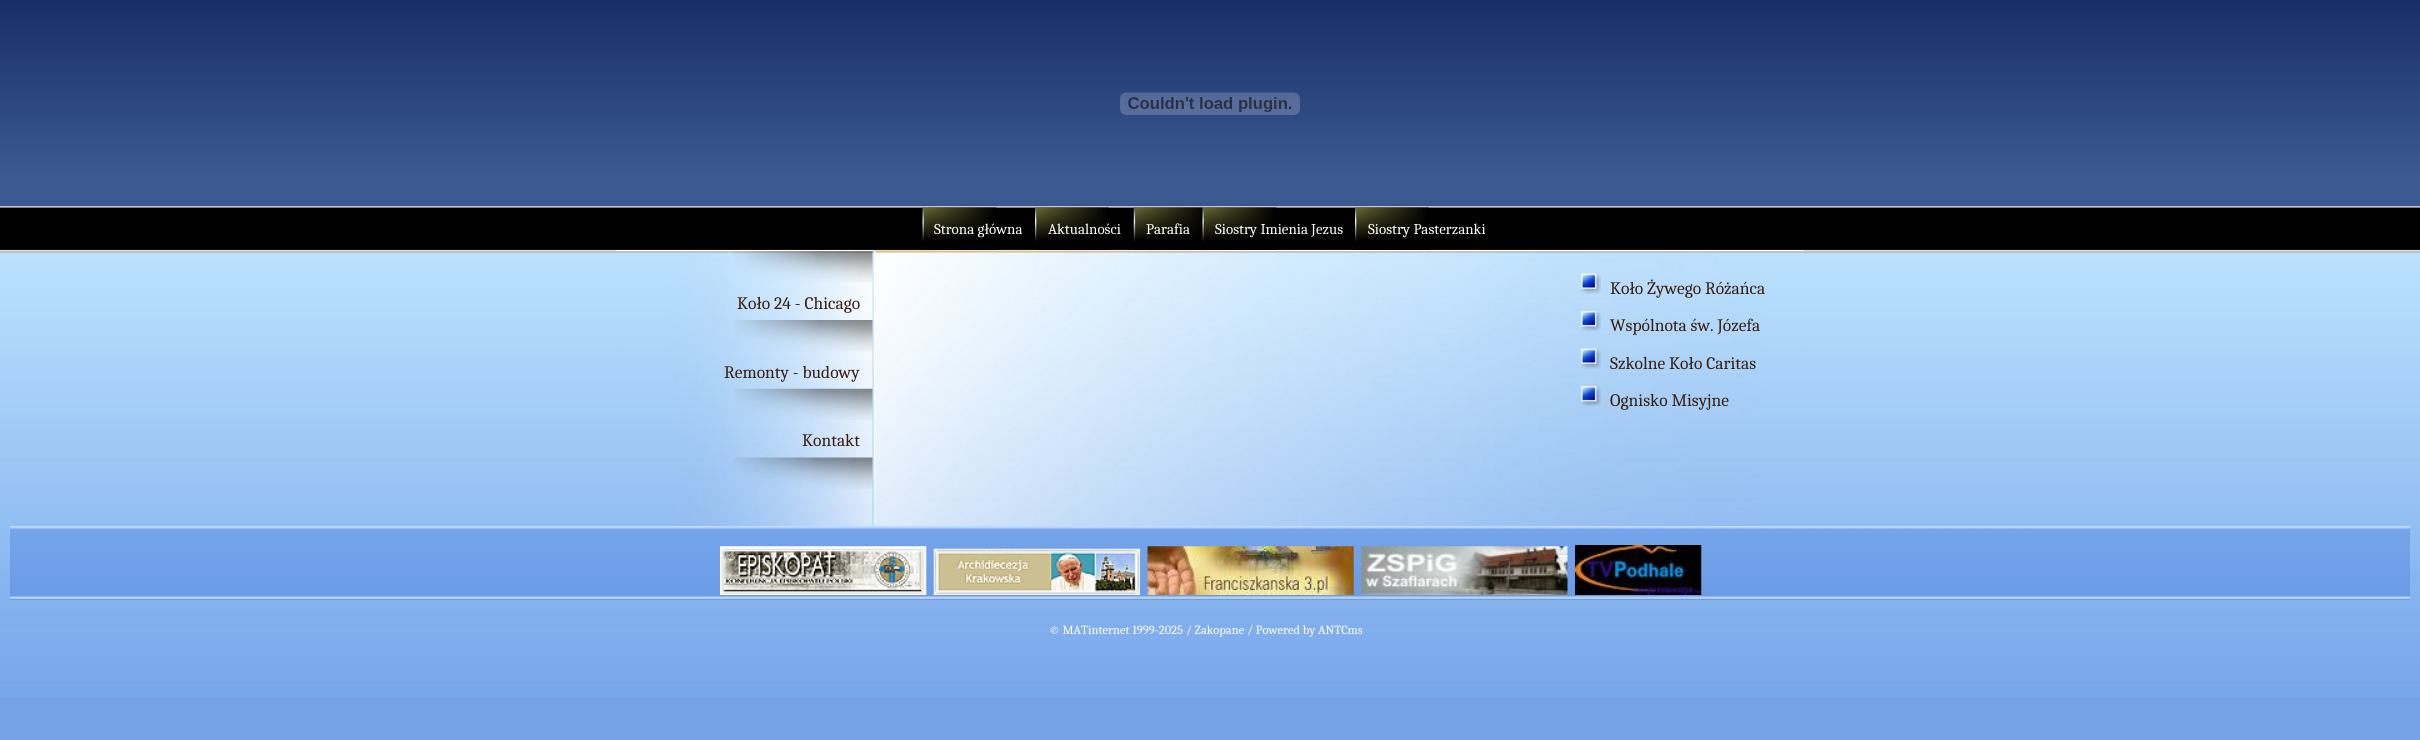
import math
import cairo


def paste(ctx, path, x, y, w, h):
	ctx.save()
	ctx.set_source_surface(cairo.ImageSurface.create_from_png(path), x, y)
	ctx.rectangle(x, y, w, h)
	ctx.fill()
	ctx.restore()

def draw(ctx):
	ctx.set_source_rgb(0.463, 0.631, 0.902)
	ctx.paint()
	paste(ctx, 'media/1.png', 0, 0, 2420, 697)
	paste(ctx, 'media/2.png', 1120, 92, 180, 23)
	paste(ctx, 'media/3.png', 922, 207, 75, 43)
	ctx.select_font_face('Caladea')
	ctx.set_font_size(15)
	ctx.set_source_rgb(1, 1, 1)
	ctx.move_to(934, 234)
	ctx.show_text('Strona główna')
	paste(ctx, 'media/4.png', 1035, 207, 74, 43)
	ctx.move_to(1048, 234)
	ctx.show_text('Aktualności')
	paste(ctx, 'media/5.png', 1133, 207, 70, 43)
	ctx.move_to(1146, 234)
	ctx.show_text('Parafia')
	paste(ctx, 'media/6.png', 1202, 207, 75, 43)
	ctx.move_to(1215, 234)
	ctx.show_text('Siostry Imienia Jezus')
	paste(ctx, 'media/4.png', 1355, 207, 74, 43)
	ctx.move_to(1368, 234)
	ctx.show_text('Siostry Pasterzanki')
	paste(ctx, 'media/7.png', 616, 250, 1188, 277)
	paste(ctx, 'media/8.png', 733, 251, 140, 31)
	ctx.set_font_size(17.5)
	ctx.set_source_rgb(0.224, 0.122, 0.059)
	ctx.move_to(737, 309)
	ctx.show_text('Koło 24 - Chicago')
	paste(ctx, 'media/9.png', 733, 320, 140, 31)
	ctx.move_to(724, 378)
	ctx.show_text('Remonty - budowy')
	paste(ctx, 'media/10.png', 733, 388, 140, 32)
	ctx.move_to(802, 446)
	ctx.show_text('Kontakt')
	paste(ctx, 'media/11.png', 733, 457, 140, 32)
	paste(ctx, 'media/12.png', 1581, 273, 20, 21)
	ctx.move_to(1610, 294)
	ctx.show_text('Koło Żywego Różańca')
	paste(ctx, 'media/13.png', 1581, 311, 20, 20)
	ctx.move_to(1610, 331)
	ctx.show_text('Wspólnota św. Józefa')
	paste(ctx, 'media/14.png', 1581, 348, 20, 21)
	ctx.move_to(1610, 369)
	ctx.show_text('Szkolne Koło Caritas')
	paste(ctx, 'media/15.png', 1581, 386, 20, 20)
	ctx.move_to(1610, 406)
	ctx.show_text('Ognisko Misyjne')
	paste(ctx, 'media/16.png', 10, 526, 2400, 74)
	paste(ctx, 'media/17.png', 720, 546, 207, 49)
	paste(ctx, 'media/18.png', 933, 548, 207, 47)
	paste(ctx, 'media/19.png', 1147, 546, 207, 49)
	paste(ctx, 'media/20.png', 1361, 546, 207, 49)
	paste(ctx, 'media/21.png', 1575, 545, 127, 50)
	ctx.set_font_size(12.5)
	ctx.set_source_rgb(1, 1, 1)
	ctx.move_to(1049, 634)
	ctx.show_text('© MATinternet 1999-2025 / Zakopane / Powered by ANTCms')


surface = cairo.ImageSurface(cairo.FORMAT_RGB24, 2420, 740)
ctx = cairo.Context(surface)
options = cairo.FontOptions()
options.set_hint_metrics(cairo.HINT_METRICS_OFF)
options.set_hint_style(cairo.HINT_STYLE_NONE)
ctx.set_font_options(options)
ctx.set_miter_limit(4)
draw(ctx)
surface.write_to_png('image.png')
